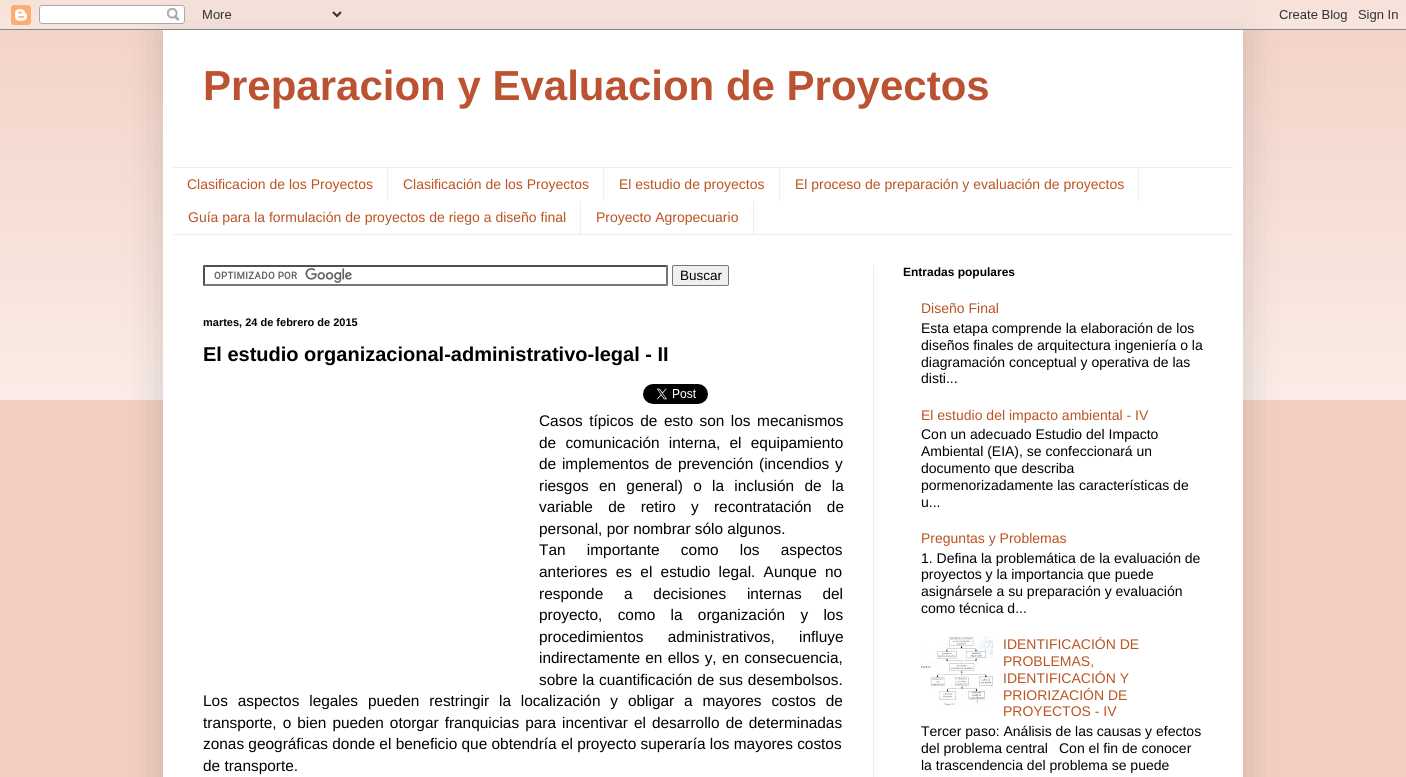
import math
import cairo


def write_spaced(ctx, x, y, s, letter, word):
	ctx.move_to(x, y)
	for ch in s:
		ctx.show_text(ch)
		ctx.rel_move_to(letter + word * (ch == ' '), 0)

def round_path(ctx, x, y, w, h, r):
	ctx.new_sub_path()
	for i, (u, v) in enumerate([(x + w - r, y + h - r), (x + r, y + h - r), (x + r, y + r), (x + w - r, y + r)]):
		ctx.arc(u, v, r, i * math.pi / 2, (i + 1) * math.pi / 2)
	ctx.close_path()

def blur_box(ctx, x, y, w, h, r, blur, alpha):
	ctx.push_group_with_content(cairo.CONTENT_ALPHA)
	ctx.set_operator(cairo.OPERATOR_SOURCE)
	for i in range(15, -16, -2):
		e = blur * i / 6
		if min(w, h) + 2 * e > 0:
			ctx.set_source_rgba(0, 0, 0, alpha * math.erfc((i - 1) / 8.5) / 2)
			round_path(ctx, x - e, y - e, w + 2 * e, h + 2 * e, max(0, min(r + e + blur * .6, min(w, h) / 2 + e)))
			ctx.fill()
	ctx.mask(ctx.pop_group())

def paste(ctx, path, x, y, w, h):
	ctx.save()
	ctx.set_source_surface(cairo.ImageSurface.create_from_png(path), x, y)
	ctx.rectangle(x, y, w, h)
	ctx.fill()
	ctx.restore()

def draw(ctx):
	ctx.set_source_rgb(0.949, 0.812, 0.761)
	ctx.paint()
	paste(ctx, 'media/2.png', 0, 10, 1406, 390)
	ctx.set_source_rgb(0, 0, 0)
	blur_box(ctx, 163, 30, 1080, 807, 0, 20, 0.15)
	paste(ctx, 'media/1.png', 0, 0, 1406, 30)
	ctx.set_source_rgb(1, 1, 1)
	ctx.rectangle(163, 30, 1080, 747)
	ctx.fill()
	ctx.select_font_face('Liberation Sans', cairo.FONT_SLANT_NORMAL, cairo.FONT_WEIGHT_BOLD)
	ctx.set_font_size(42)
	ctx.set_source_rgb(0.733, 0.325, 0.196)
	ctx.move_to(203, 100)
	ctx.show_text('Preparacion y Evaluacion de Proyectos')
	ctx.set_source_rgb(0.933, 0.933, 0.933)
	ctx.rectangle(173, 167, 1060, 1)
	ctx.rectangle(173, 234, 1060, 1)
	ctx.rectangle(387, 168, 1, 33)
	ctx.fill()
	ctx.select_font_face('Liberation Sans')
	ctx.set_font_size(14)
	ctx.set_source_rgb(0.733, 0.325, 0.129)
	ctx.move_to(187, 189)
	ctx.show_text('Clasificacion de los Proyectos')
	ctx.set_source_rgb(0.933, 0.933, 0.933)
	ctx.rectangle(603, 168, 1, 33)
	ctx.fill()
	ctx.set_source_rgb(0.733, 0.325, 0.129)
	ctx.move_to(403, 189)
	ctx.show_text('Clasificación de los Proyectos')
	ctx.set_source_rgb(0.933, 0.933, 0.933)
	ctx.rectangle(779, 168, 1, 33)
	ctx.fill()
	ctx.set_source_rgb(0.733, 0.325, 0.129)
	ctx.move_to(619, 189)
	ctx.show_text('El estudio de proyectos')
	ctx.set_source_rgb(0.933, 0.933, 0.933)
	ctx.rectangle(1138, 168, 1, 33)
	ctx.fill()
	ctx.set_source_rgb(0.733, 0.325, 0.129)
	ctx.move_to(795, 189)
	ctx.show_text('El proceso de preparación y evaluación de proyectos')
	ctx.set_source_rgb(0.933, 0.933, 0.933)
	ctx.rectangle(580, 201, 1, 33)
	ctx.fill()
	ctx.set_source_rgb(0.733, 0.325, 0.129)
	ctx.move_to(188, 222)
	ctx.show_text('Guía para la formulación de proyectos de riego a diseño final')
	ctx.set_source_rgb(0.933, 0.933, 0.933)
	ctx.rectangle(753, 201, 1, 33)
	ctx.fill()
	ctx.set_source_rgb(0.733, 0.325, 0.129)
	ctx.move_to(596, 222)
	ctx.show_text('Proyecto Agropecuario')
	ctx.set_source_rgb(0.933, 0.933, 0.933)
	ctx.rectangle(873, 265, 1, 512)
	ctx.fill()
	paste(ctx, 'media/3.png', 214, 268, 138, 15)
	ctx.set_source_rgb(0.31, 0.31, 0.31)
	ctx.new_path()
	ctx.move_to(203, 265)
	ctx.line_to(668, 265)
	ctx.line_to(666, 267)
	ctx.line_to(205, 267)
	ctx.close_path()
	ctx.fill()
	ctx.set_source_rgb(0.463, 0.463, 0.463)
	ctx.new_path()
	ctx.move_to(668, 265)
	ctx.line_to(668, 286)
	ctx.line_to(666, 284)
	ctx.line_to(666, 267)
	ctx.close_path()
	ctx.fill()
	ctx.new_path()
	ctx.move_to(668, 286)
	ctx.line_to(203, 286)
	ctx.line_to(205, 284)
	ctx.line_to(666, 284)
	ctx.close_path()
	ctx.fill()
	ctx.set_source_rgb(0.31, 0.31, 0.31)
	ctx.new_path()
	ctx.move_to(203, 286)
	ctx.line_to(203, 265)
	ctx.line_to(205, 267)
	ctx.line_to(205, 284)
	ctx.close_path()
	ctx.fill()
	ctx.set_source_rgb(0.937, 0.937, 0.937)
	round_path(ctx, 672.5, 265.5, 56, 20, 1.5)
	ctx.fill_preserve()
	ctx.set_source_rgb(0.463, 0.463, 0.463)
	ctx.set_line_width(1)
	ctx.stroke()
	ctx.set_font_size(13.5)
	ctx.set_source_rgb(0, 0, 0)
	ctx.move_to(680, 280)
	ctx.show_text('Buscar')
	ctx.select_font_face('Liberation Sans', cairo.FONT_SLANT_NORMAL, cairo.FONT_WEIGHT_BOLD)
	ctx.set_font_size(11)
	ctx.move_to(203, 326)
	ctx.show_text('martes, 24 de febrero de 2015')
	ctx.set_font_size(20)
	ctx.move_to(203, 361)
	ctx.show_text('El estudio organizacional-administrativo-legal - II')
	paste(ctx, 'media/4.png', 643, 384, 65, 20)
	ctx.select_font_face('Liberation Sans')
	ctx.set_font_size(15.4)
	write_spaced(ctx, 539, 426, 'Casos típicos de esto son los mecanismos', 0, 2.25)
	write_spaced(ctx, 539, 448, 'de comunicación interna, el equipamiento', 0, 5)
	write_spaced(ctx, 539, 469, 'de implementos de prevención (incendios y', 0, 1.5)
	write_spaced(ctx, 539, 491, 'riesgos en general) o la inclusión de la', 0, 6)
	write_spaced(ctx, 539, 512, 'variable de retiro y recontratación de', 0, 11)
	ctx.move_to(539, 534)
	ctx.show_text('personal, por nombrar sólo algunos.')
	write_spaced(ctx, 539, 555, 'Tan importante como los aspectos', 0, 17)
	write_spaced(ctx, 539, 577, 'anteriores es el estudio legal. Aunque no', 0, 4)
	write_spaced(ctx, 539, 599, 'responde a decisiones internas del', 0, 16.5)
	write_spaced(ctx, 539, 620, 'proyecto, como la organización y los', 0, 11)
	write_spaced(ctx, 539, 642, 'procedimientos administrativos, influye', 0, 20)
	write_spaced(ctx, 539, 663, 'indirectamente en ellos y, en consecuencia,', 0, 1)
	write_spaced(ctx, 539, 685, 'sobre la cuantificación de sus desembolsos.', 0, 0.5)
	write_spaced(ctx, 203, 706, 'Los aspectos legales pueden restringir la localización y obligar a mayores costos de', 0, 5.6)
	write_spaced(ctx, 203, 728, 'transporte, o bien pueden otorgar franquicias para incentivar el desarrollo de determinadas', 0, 1.75)
	ctx.move_to(203, 749)
	ctx.show_text('zonas geográficas donde el beneficio que obtendría el proyecto superaría los mayores costos')
	ctx.move_to(203, 771)
	ctx.show_text('de transporte.')
	ctx.select_font_face('Liberation Sans', cairo.FONT_SLANT_NORMAL, cairo.FONT_WEIGHT_BOLD)
	ctx.set_font_size(12)
	ctx.move_to(903, 276)
	ctx.show_text('Entradas populares')
	ctx.select_font_face('Liberation Sans')
	ctx.set_font_size(14)
	ctx.set_source_rgb(0.733, 0.325, 0.129)
	ctx.move_to(921, 313)
	ctx.show_text('Diseño Final')
	ctx.set_source_rgb(0, 0, 0)
	for x, y, s in [
		(921, 333, 'Esta etapa comprende la elaboración de los'),
		(921, 350, 'diseños finales de arquitectura ingeniería o la'),
		(921, 367, 'diagramación conceptual y operativa de las'),
		(921, 383, 'disti...'),
	]:
		ctx.move_to(x, y)
		ctx.show_text(s)
	ctx.set_source_rgb(0.733, 0.325, 0.129)
	ctx.move_to(921, 420)
	ctx.show_text('El estudio del impacto ambiental - IV')
	ctx.set_source_rgb(0, 0, 0)
	for x, y, s in [
		(921, 439, 'Con un adecuado Estudio del Impacto'),
		(921, 456, 'Ambiental (EIA), se confeccionará un'),
		(921, 473, 'documento que describa'),
		(921, 490, 'pormenorizadamente las características de'),
		(921, 507, 'u...'),
	]:
		ctx.move_to(x, y)
		ctx.show_text(s)
	ctx.set_source_rgb(0.733, 0.325, 0.129)
	ctx.move_to(921, 543)
	ctx.show_text('Preguntas y Problemas')
	ctx.set_source_rgb(0, 0, 0)
	for x, y, s in [
		(921, 563, '1. Defina la problemática de la evaluación de'),
		(921, 579, 'proyectos y la importancia que puede'),
		(921, 596, 'asignársele a su preparación y evaluación'),
		(921, 613, 'como técnica d...'),
	]:
		ctx.move_to(x, y)
		ctx.show_text(s)
	paste(ctx, 'media/5.png', 921, 636, 72, 72)
	ctx.set_source_rgb(0.733, 0.325, 0.129)
	for x, y, s in [
		(1003, 649, 'IDENTIFICACIÓN DE'),
		(1003, 666, 'PROBLEMAS,'),
		(1003, 683, 'IDENTIFICACIÓN Y'),
		(1003, 700, 'PRIORIZACIÓN DE'),
		(1003, 716, 'PROYECTOS - IV'),
	]:
		ctx.move_to(x, y)
		ctx.show_text(s)
	ctx.set_source_rgb(0, 0, 0)
	for x, y, s in [
		(921, 736, 'Tercer paso: Análisis de las causas y efectos'),
		(921, 753, 'del problema central'),
		(1059, 753, 'Con el fin de conocer'),
		(921, 770, 'la trascendencia del problema se puede'),
	]:
		ctx.move_to(x, y)
		ctx.show_text(s)


surface = cairo.ImageSurface(cairo.FORMAT_RGB24, 1406, 777)
ctx = cairo.Context(surface)
options = cairo.FontOptions()
options.set_hint_metrics(cairo.HINT_METRICS_OFF)
options.set_hint_style(cairo.HINT_STYLE_NONE)
ctx.set_font_options(options)
ctx.set_miter_limit(4)
draw(ctx)
surface.write_to_png('image.png')
